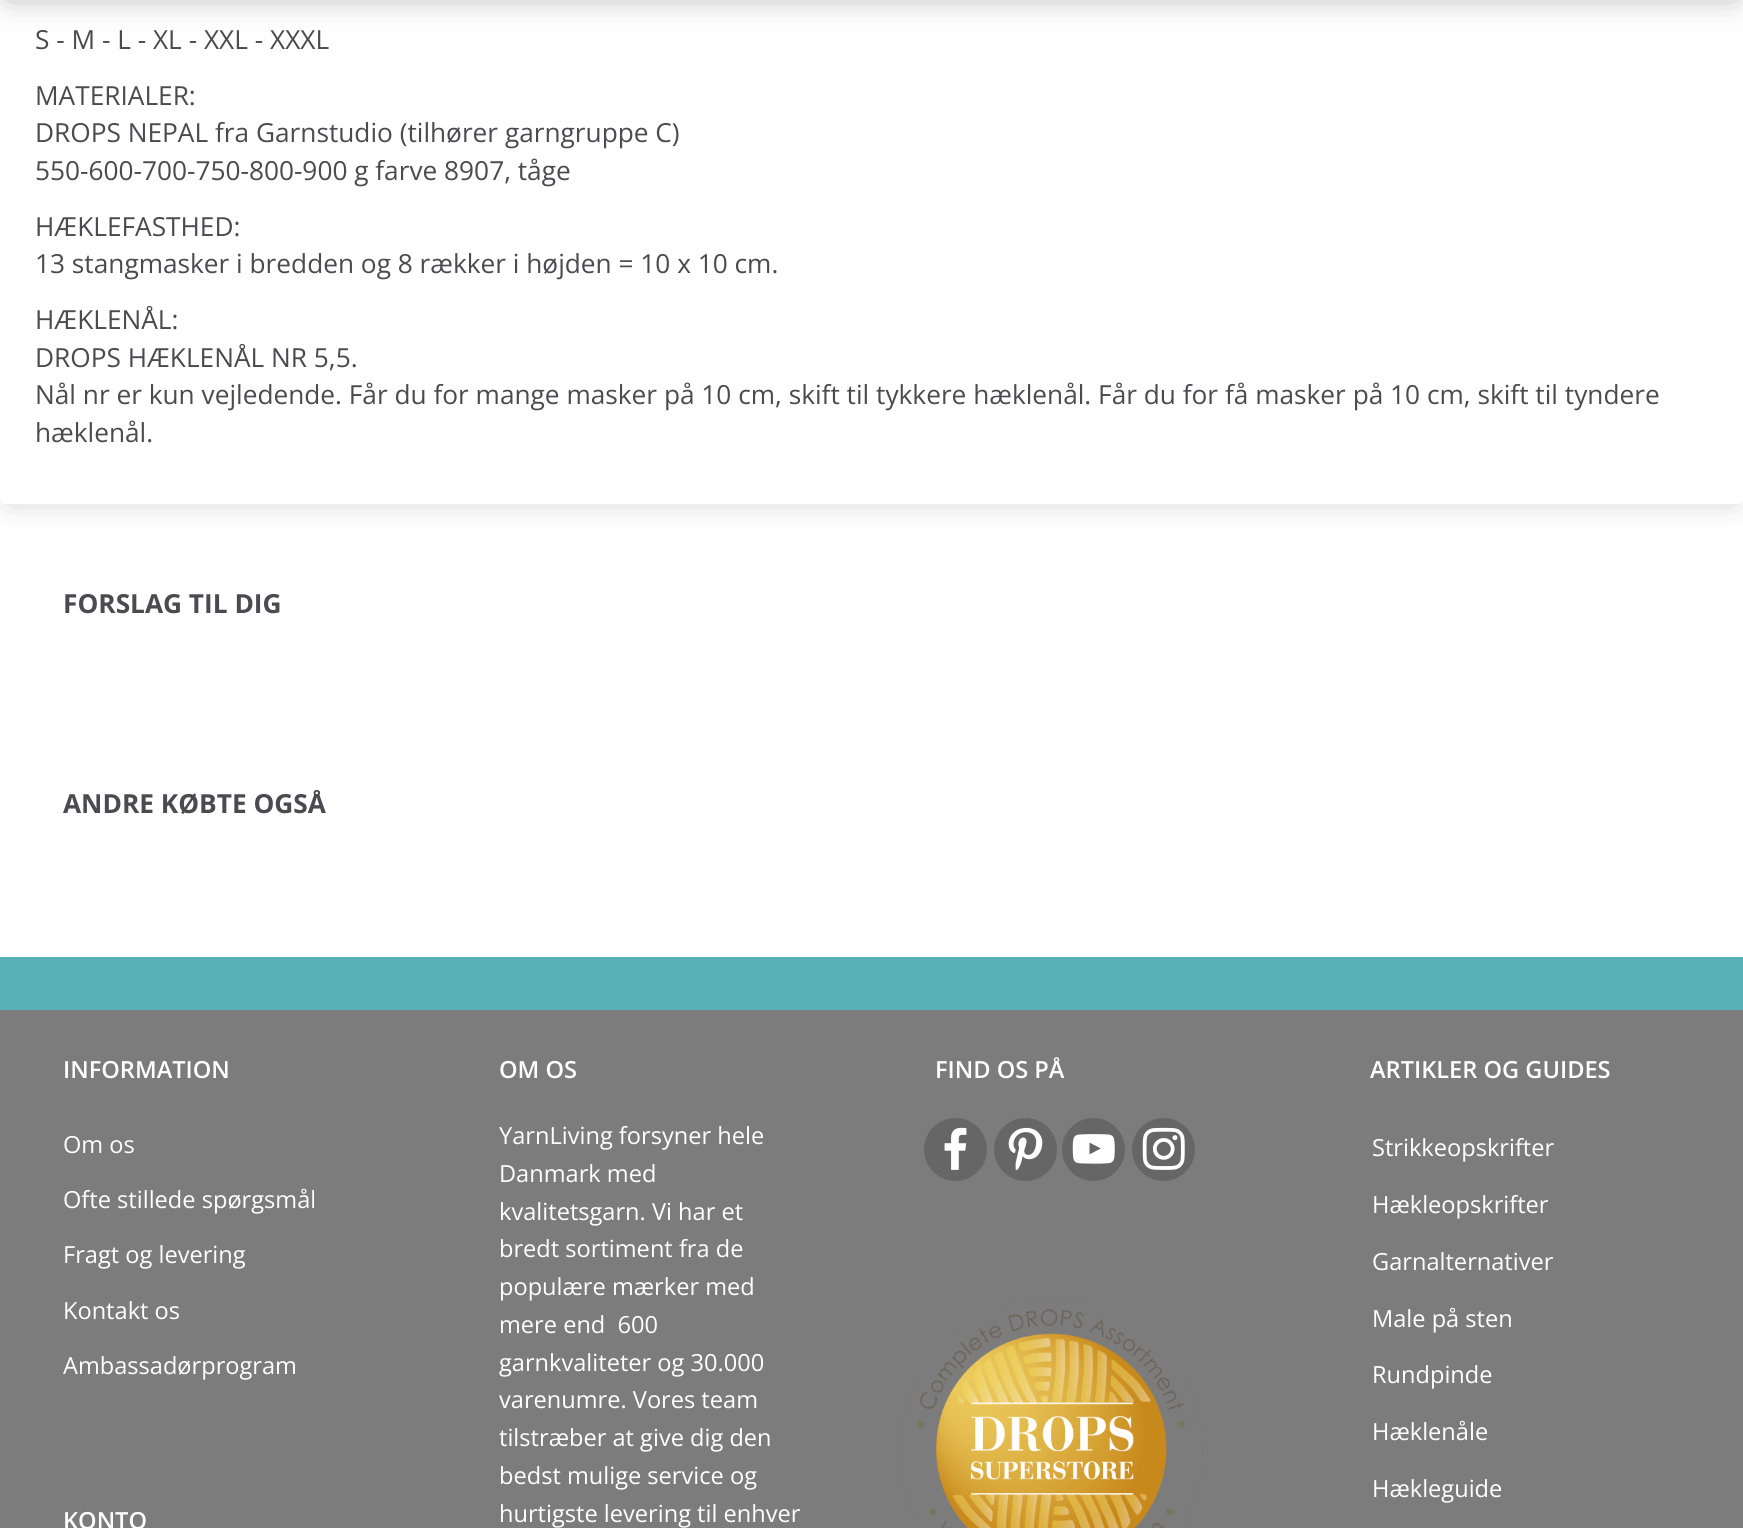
import math
import cairo


def round_path(ctx, x, y, w, h, r):
	ctx.new_sub_path()
	for i, (u, v) in enumerate([(x + w - r, y + h - r), (x + r, y + h - r), (x + r, y + r), (x + w - r, y + r)]):
		ctx.arc(u, v, r, i * math.pi / 2, (i + 1) * math.pi / 2)
	ctx.close_path()

def blur_box(ctx, x, y, w, h, r, blur, alpha):
	ctx.push_group_with_content(cairo.CONTENT_ALPHA)
	ctx.set_operator(cairo.OPERATOR_SOURCE)
	for i in range(15, -16, -2):
		e = blur * i / 6
		if min(w, h) + 2 * e > 0:
			ctx.set_source_rgba(0, 0, 0, alpha * math.erfc((i - 1) / 8.5) / 2)
			round_path(ctx, x - e, y - e, w + 2 * e, h + 2 * e, max(0, min(r + e + blur * .6, min(w, h) / 2 + e)))
			ctx.fill()
	ctx.mask(ctx.pop_group())

def paste(ctx, path, x, y, w, h):
	ctx.save()
	ctx.set_source_surface(cairo.ImageSurface.create_from_png(path), x, y)
	ctx.rectangle(x, y, w, h)
	ctx.fill()
	ctx.restore()

def draw(ctx):
	ctx.set_source_rgb(1, 1, 1)
	ctx.paint()
	ctx.set_source_rgb(0.722, 0.722, 0.722)
	blur_box(ctx, 9, -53, 1725, 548, 0, 17.5, 1)
	ctx.set_source_rgb(1, 1, 1)
	round_path(ctx, 0, -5, 1743, 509, 5)
	ctx.fill()
	ctx.set_source_rgb(0.58, 0.58, 0.58)
	blur_box(ctx, 9, -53, 1725, 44, 0, 17.5, 1)
	ctx.select_font_face('Open Sans')
	ctx.set_font_size(26.25)
	ctx.set_source_rgb(0.294, 0.29, 0.314)
	for x, y, s in [
		(35, 49, 'S - M - L - XL - XXL - XXXL'),
		(35, 105, 'MATERIALER:'),
		(35, 142, 'DROPS NEPAL fra Garnstudio (tilhører garngruppe C)'),
		(35, 180, '550-600-700-750-800-900 g farve 8907, tåge'),
		(35, 236, 'HÆKLEFASTHED:'),
		(35, 273, '13 stangmasker i bredden og 8 rækker i højden = 10 x 10 cm.'),
		(35, 329, 'HÆKLENÅL:'),
		(35, 367, 'DROPS HÆKLENÅL NR 5,5.'),
		(35, 404, 'Nål nr er kun vejledende. Får du for mange masker på 10 cm, skift til tykkere hæklenål. Får du for få masker på 10 cm, skift til tyndere'),
		(35, 442, 'hæklenål.'),
	]:
		ctx.move_to(x, y)
		ctx.show_text(s)
	ctx.select_font_face('Open Sans', cairo.FONT_SLANT_NORMAL, cairo.FONT_WEIGHT_BOLD)
	ctx.move_to(63, 613)
	ctx.show_text('FORSLAG TIL DIG')
	ctx.move_to(63, 813)
	ctx.show_text('ANDRE KØBTE OGSÅ')
	ctx.set_source_rgb(0.486, 0.486, 0.486)
	ctx.rectangle(0, 1010, 1743, 518)
	ctx.fill()
	ctx.set_source_rgb(0.345, 0.694, 0.718)
	ctx.rectangle(0, 957, 1743, 53)
	ctx.fill()
	ctx.select_font_face('Open Sans SemiBold')
	ctx.set_font_size(23.6)
	ctx.set_source_rgb(1, 1, 1)
	ctx.move_to(63, 1078)
	ctx.show_text('INFORMATION')
	ctx.select_font_face('Open Sans')
	for x, y, s in [
		(63, 1153, 'Om os'),
		(63, 1208, 'Ofte stillede spørgsmål'),
		(63, 1263, 'Fragt og levering'),
		(63, 1319, 'Kontakt os'),
		(63, 1374, 'Ambassadørprogram'),
	]:
		ctx.move_to(x, y)
		ctx.show_text(s)
	ctx.select_font_face('Open Sans SemiBold')
	ctx.move_to(63, 1529)
	ctx.show_text('KONTO')
	ctx.move_to(499, 1078)
	ctx.show_text('OM OS')
	ctx.select_font_face('Open Sans')
	for x, y, s in [
		(499, 1144, 'YarnLiving forsyner hele'),
		(499, 1182, 'Danmark med'),
		(499, 1220, 'kvalitetsgarn. Vi har et'),
		(499, 1257, 'bredt sortiment fra de'),
		(499, 1295, 'populære mærker med'),
		(499, 1333, 'mere end  600'),
		(499, 1371, 'garnkvaliteter og 30.000'),
		(499, 1408, 'varenumre. Vores team'),
		(499, 1446, 'tilstræber at give dig den'),
		(499, 1484, 'bedst mulige service og'),
		(499, 1522, 'hurtigste levering til enhver'),
	]:
		ctx.move_to(x, y)
		ctx.show_text(s)
	ctx.select_font_face('Open Sans SemiBold')
	ctx.move_to(935, 1078)
	ctx.show_text('FIND OS PÅ')
	ctx.set_source_rgb(0.4, 0.4, 0.4)
	ctx.new_path()
	ctx.arc(955.5, 1149.5, 31.5, 0, 2 * math.pi)
	ctx.fill()
	paste(ctx, 'media/1.png', 944, 1127, 23, 43)
	ctx.arc(1025.5, 1149.5, 31.5, 0, 2 * math.pi)
	ctx.fill()
	paste(ctx, 'media/2.png', 1008, 1127, 35, 43)
	ctx.arc(1093.5, 1149.5, 31.5, 0, 2 * math.pi)
	ctx.fill()
	paste(ctx, 'media/3.png', 1072, 1134, 43, 30)
	ctx.arc(1163.5, 1149.5, 31.5, 0, 2 * math.pi)
	ctx.fill()
	paste(ctx, 'media/4.png', 1142, 1127, 43, 43)
	paste(ctx, 'media/5.png', 899, 1298, 304, 230)
	ctx.set_source_rgb(1, 1, 1)
	ctx.move_to(1370, 1078)
	ctx.show_text('ARTIKLER OG GUIDES')
	ctx.select_font_face('Open Sans')
	for x, y, s in [
		(1372, 1156, 'Strikkeopskrifter'),
		(1372, 1213, 'Hækleopskrifter'),
		(1372, 1270, 'Garnalternativer'),
		(1372, 1327, 'Male på sten'),
		(1372, 1383, 'Rundpinde'),
		(1372, 1440, 'Hæklenåle'),
		(1372, 1497, 'Hækleguide'),
	]:
		ctx.move_to(x, y)
		ctx.show_text(s)


surface = cairo.ImageSurface(cairo.FORMAT_RGB24, 1743, 1528)
ctx = cairo.Context(surface)
options = cairo.FontOptions()
options.set_hint_metrics(cairo.HINT_METRICS_OFF)
options.set_hint_style(cairo.HINT_STYLE_NONE)
ctx.set_font_options(options)
ctx.set_miter_limit(4)
draw(ctx)
surface.write_to_png('image.png')
